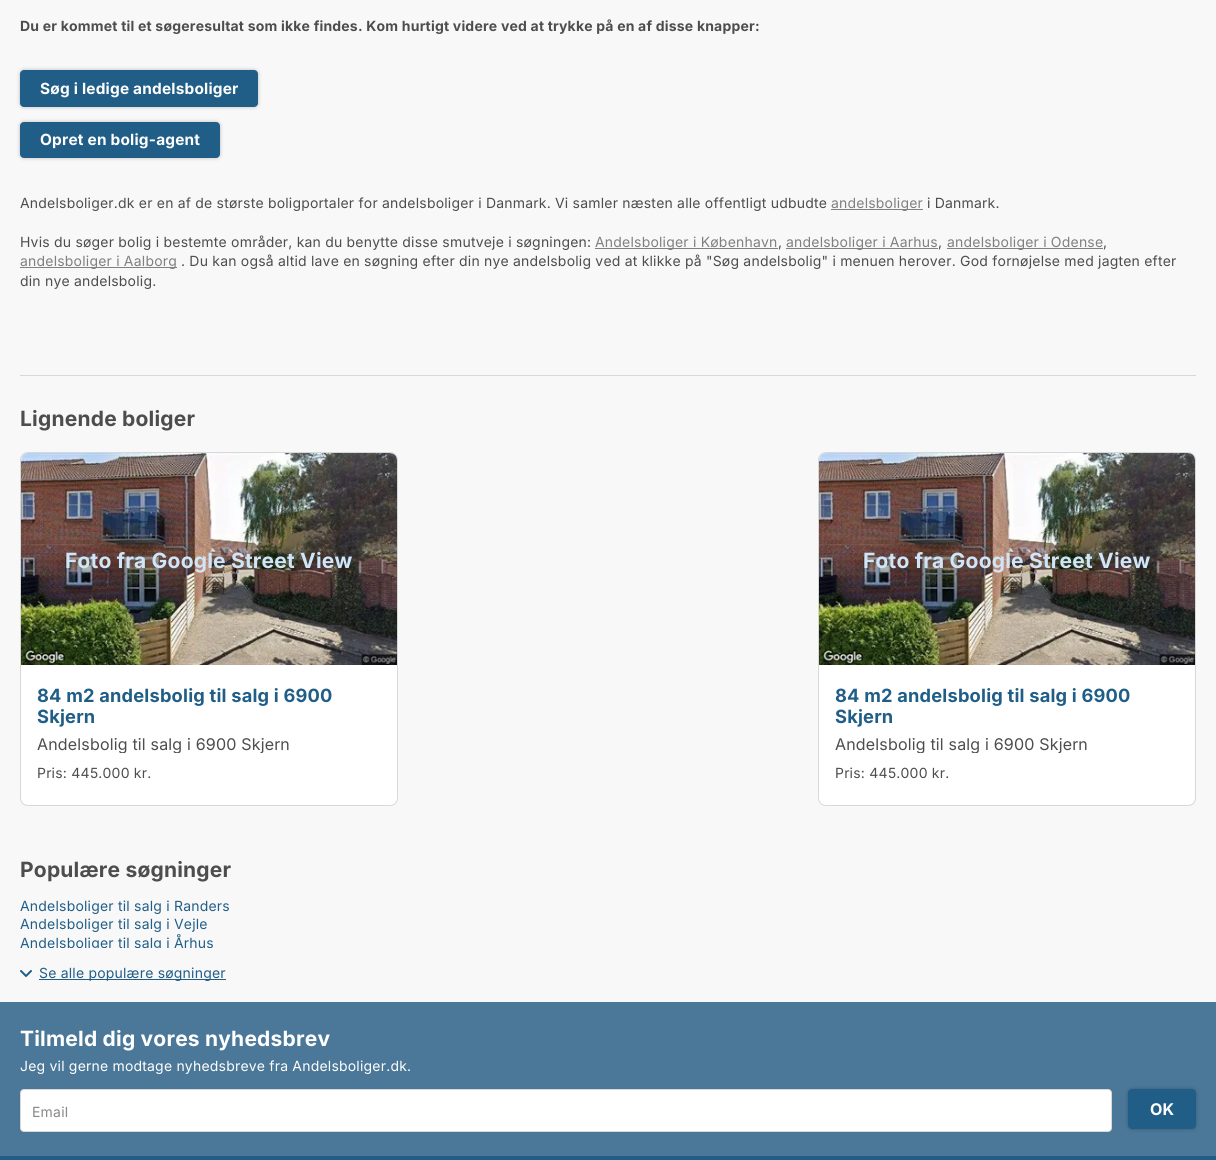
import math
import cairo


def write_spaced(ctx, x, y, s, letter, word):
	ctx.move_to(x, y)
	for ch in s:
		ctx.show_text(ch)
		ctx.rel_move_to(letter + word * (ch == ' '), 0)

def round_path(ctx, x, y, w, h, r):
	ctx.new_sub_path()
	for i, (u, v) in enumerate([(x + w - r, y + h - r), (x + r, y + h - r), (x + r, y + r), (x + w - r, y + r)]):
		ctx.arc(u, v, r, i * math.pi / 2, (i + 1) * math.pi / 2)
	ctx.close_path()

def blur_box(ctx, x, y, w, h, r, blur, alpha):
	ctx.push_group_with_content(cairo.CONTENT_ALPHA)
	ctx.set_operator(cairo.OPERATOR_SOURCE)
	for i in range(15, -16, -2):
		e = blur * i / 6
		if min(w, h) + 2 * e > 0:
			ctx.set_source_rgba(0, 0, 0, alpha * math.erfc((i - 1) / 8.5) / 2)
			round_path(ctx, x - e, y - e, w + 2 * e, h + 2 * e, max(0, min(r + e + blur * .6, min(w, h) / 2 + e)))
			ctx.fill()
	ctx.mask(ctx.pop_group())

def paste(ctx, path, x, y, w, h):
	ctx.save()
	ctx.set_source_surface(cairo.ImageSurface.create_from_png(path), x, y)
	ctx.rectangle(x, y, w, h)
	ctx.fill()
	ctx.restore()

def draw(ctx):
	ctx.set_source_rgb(0.129, 0.369, 0.529)
	ctx.paint()
	ctx.set_source_rgb(0.969, 0.969, 0.969)
	ctx.rectangle(0, 0, 1216, 1002)
	ctx.fill()
	ctx.select_font_face('Inter', cairo.FONT_SLANT_NORMAL, cairo.FONT_WEIGHT_BOLD)
	ctx.set_font_size(14)
	ctx.set_source_rgb(0.302, 0.302, 0.302)
	write_spaced(ctx, 20, 31, 'Du er kommet til et søgeresultat som ikke findes. Kom hurtigt videre ved at trykke på en af disse knapper:', 0.2, 0)
	ctx.set_source_rgb(0, 0, 0)
	blur_box(ctx, 20, 70, 238, 37, 4, 2, 0.25)
	ctx.set_source_rgb(0.129, 0.369, 0.529)
	round_path(ctx, 20, 70, 238, 37, 4)
	ctx.fill()
	ctx.set_font_size(15.4)
	ctx.set_source_rgb(1, 1, 1)
	write_spaced(ctx, 40, 94, 'Søg i ledige andelsboliger', 0.2, 0)
	ctx.set_source_rgb(0, 0, 0)
	blur_box(ctx, 20, 122, 200, 36, 4, 2, 0.25)
	ctx.set_source_rgb(0.129, 0.369, 0.529)
	round_path(ctx, 20, 122, 200, 36, 4)
	ctx.fill()
	ctx.set_source_rgb(1, 1, 1)
	write_spaced(ctx, 40, 145, 'Opret en bolig-agent', 0.2, 0)
	ctx.select_font_face('Inter')
	ctx.set_font_size(14)
	ctx.set_source_rgb(0.302, 0.302, 0.302)
	write_spaced(ctx, 20, 208, 'Andelsboliger.dk er en af de største boligportaler for andelsboliger i Danmark. Vi samler næsten alle offentligt udbudte', 0.2, 0)
	ctx.set_source_rgb(0.502, 0.502, 0.502)
	ctx.rectangle(831, 209, 92, 1)
	ctx.fill()
	write_spaced(ctx, 831, 208, 'andelsboliger', 0.2, 0)
	ctx.set_source_rgb(0.302, 0.302, 0.302)
	write_spaced(ctx, 927, 208, 'i Danmark.', 0.2, 0)
	write_spaced(ctx, 20, 247, 'Hvis du søger bolig i bestemte områder, kan du benytte disse smutveje i søgningen:', 0.2, 0)
	ctx.set_source_rgb(0.502, 0.502, 0.502)
	ctx.rectangle(595, 248, 183, 1)
	ctx.fill()
	write_spaced(ctx, 595, 247, 'Andelsboliger i København', 0.2, 0)
	ctx.set_source_rgb(0.302, 0.302, 0.302)
	write_spaced(ctx, 778, 247, ',', 0.2, 0)
	ctx.set_source_rgb(0.502, 0.502, 0.502)
	ctx.rectangle(786, 248, 152, 1)
	ctx.fill()
	write_spaced(ctx, 786, 247, 'andelsboliger i Aarhus', 0.2, 0)
	ctx.set_source_rgb(0.302, 0.302, 0.302)
	write_spaced(ctx, 938, 247, ',', 0.2, 0)
	ctx.set_source_rgb(0.502, 0.502, 0.502)
	ctx.rectangle(947, 248, 156, 1)
	ctx.fill()
	write_spaced(ctx, 947, 247, 'andelsboliger i Odense', 0.2, 0)
	ctx.set_source_rgb(0.302, 0.302, 0.302)
	write_spaced(ctx, 1103, 247, ',', 0.2, 0)
	ctx.set_source_rgb(0.502, 0.502, 0.502)
	ctx.rectangle(20, 267, 157, 1)
	ctx.fill()
	write_spaced(ctx, 20, 266, 'andelsboliger i Aalborg', 0.2, 0)
	ctx.set_source_rgb(0.302, 0.302, 0.302)
	write_spaced(ctx, 181, 266, '. Du kan også altid lave en søgning efter din nye andelsbolig ved at klikke på "Søg andelsbolig" i menuen herover. God fornøjelse med jagten efter', 0.2, 0)
	write_spaced(ctx, 20, 286, 'din nye andelsbolig.', 0.2, 0)
	ctx.set_source_rgb(0.847, 0.847, 0.847)
	ctx.rectangle(20, 375, 1176, 1)
	ctx.fill()
	ctx.select_font_face('Inter', cairo.FONT_SLANT_NORMAL, cairo.FONT_WEIGHT_BOLD)
	ctx.set_font_size(21)
	ctx.set_source_rgb(0.302, 0.302, 0.302)
	write_spaced(ctx, 20, 426, 'Lignende boliger', 0.2, 0)
	ctx.set_source_rgb(1, 1, 1)
	round_path(ctx, 20.5, 452.5, 377, 353, 7.5)
	ctx.fill_preserve()
	ctx.set_source_rgb(0.847, 0.847, 0.847)
	ctx.set_line_width(1)
	ctx.stroke()
	paste(ctx, 'media/1.png', 21, 453, 376, 212)
	ctx.set_source_rgb(0.816, 0.902, 0.969)
	write_spaced(ctx, 65, 568, 'Foto fra Google Street View', 0.2, 0)
	ctx.set_font_size(18.25)
	ctx.set_source_rgb(0.129, 0.369, 0.529)
	write_spaced(ctx, 37, 702, '84 m2 andelsbolig til salg i 6900', 0.2, 0)
	write_spaced(ctx, 37, 723, 'Skjern', 0.2, 0)
	ctx.save()
	ctx.rectangle(37, 735, 344, 18)
	ctx.clip()
	ctx.select_font_face('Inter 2')
	ctx.set_font_size(16.1)
	ctx.set_source_rgb(0.302, 0.302, 0.302)
	write_spaced(ctx, 37, 750, 'Andelsbolig til salg i 6900 Skjern', 0.2, 0)
	ctx.restore()
	ctx.select_font_face('Inter')
	ctx.set_font_size(14)
	ctx.set_source_rgb(0.302, 0.302, 0.302)
	write_spaced(ctx, 37, 778, 'Pris: 445.000 kr.', 0.2, 0)
	ctx.set_source_rgb(1, 1, 1)
	round_path(ctx, 818.5, 452.5, 377, 353, 7.5)
	ctx.fill_preserve()
	ctx.set_source_rgb(0.847, 0.847, 0.847)
	ctx.stroke()
	paste(ctx, 'media/2.png', 819, 453, 376, 212)
	ctx.select_font_face('Inter', cairo.FONT_SLANT_NORMAL, cairo.FONT_WEIGHT_BOLD)
	ctx.set_font_size(21)
	ctx.set_source_rgb(0.816, 0.902, 0.969)
	write_spaced(ctx, 863, 568, 'Foto fra Google Street View', 0.2, 0)
	ctx.set_font_size(18.25)
	ctx.set_source_rgb(0.129, 0.369, 0.529)
	write_spaced(ctx, 835, 702, '84 m2 andelsbolig til salg i 6900', 0.2, 0)
	write_spaced(ctx, 835, 723, 'Skjern', 0.2, 0)
	ctx.save()
	ctx.rectangle(835, 735, 344, 18)
	ctx.clip()
	ctx.select_font_face('Inter 2')
	ctx.set_font_size(16.1)
	ctx.set_source_rgb(0.302, 0.302, 0.302)
	write_spaced(ctx, 835, 750, 'Andelsbolig til salg i 6900 Skjern', 0.2, 0)
	ctx.restore()
	ctx.select_font_face('Inter')
	ctx.set_font_size(14)
	ctx.set_source_rgb(0.302, 0.302, 0.302)
	write_spaced(ctx, 835, 778, 'Pris: 445.000 kr.', 0.2, 0)
	ctx.select_font_face('Inter', cairo.FONT_SLANT_NORMAL, cairo.FONT_WEIGHT_BOLD)
	ctx.set_font_size(21)
	write_spaced(ctx, 20, 877, 'Populære søgninger', 0.2, 0)
	ctx.select_font_face('Inter')
	ctx.set_font_size(14)
	ctx.set_source_rgb(0.129, 0.369, 0.529)
	for x, y, s in [
		(20, 911, 'Andelsboliger til salg i Randers'),
		(20, 929, 'Andelsboliger til salg i Vejle'),
		(20, 948, 'Andelsboliger til salg i Århus'),
	]:
		write_spaced(ctx, x, y, s, 0.2, 0)
	ctx.set_source_rgb(0.969, 0.969, 0.969)
	ctx.rectangle(41, 948, 170, 3)
	ctx.fill()
	ctx.new_path()
	ctx.move_to(21, 971)
	ctx.line_to(26, 976)
	ctx.line_to(31, 971)
	ctx.set_source_rgb(0.129, 0.369, 0.529)
	ctx.set_line_width(2)
	ctx.set_line_cap(cairo.LINE_CAP_ROUND)
	ctx.set_line_join(cairo.LINE_JOIN_ROUND)
	ctx.stroke()
	ctx.rectangle(39, 979, 187, 1)
	ctx.fill()
	write_spaced(ctx, 39, 978, 'Se alle populære søgninger', 0.2, 0)
	ctx.set_source_rgb(0.294, 0.471, 0.596)
	ctx.rectangle(0, 1002, 1216, 154)
	ctx.fill()
	ctx.select_font_face('Inter', cairo.FONT_SLANT_NORMAL, cairo.FONT_WEIGHT_BOLD)
	ctx.set_font_size(21)
	ctx.set_source_rgb(1, 1, 1)
	write_spaced(ctx, 20, 1046, 'Tilmeld dig vores nyhedsbrev', 0.2, 0)
	ctx.select_font_face('Inter')
	ctx.set_font_size(14)
	write_spaced(ctx, 20, 1071, 'Jeg vil gerne modtage nyhedsbreve fra Andelsboliger.dk.', 0.2, 0)
	round_path(ctx, 20.5, 1089.5, 1091, 42, 3.5)
	ctx.fill_preserve()
	ctx.set_source_rgb(0.847, 0.847, 0.847)
	ctx.set_line_width(1)
	ctx.set_line_cap(cairo.LINE_CAP_BUTT)
	ctx.set_line_join(cairo.LINE_JOIN_MITER)
	ctx.stroke()
	ctx.set_source_rgb(0.533, 0.533, 0.533)
	write_spaced(ctx, 32, 1117, 'Email', 0.2, 0)
	ctx.set_source_rgb(0, 0, 0)
	blur_box(ctx, 1128, 1089, 68, 40, 4, 2, 0.25)
	ctx.set_source_rgb(0.129, 0.369, 0.529)
	round_path(ctx, 1128, 1089, 68, 40, 4)
	ctx.fill()
	ctx.select_font_face('Inter', cairo.FONT_SLANT_NORMAL, cairo.FONT_WEIGHT_BOLD)
	ctx.set_font_size(16.1)
	ctx.set_source_rgb(1, 1, 1)
	write_spaced(ctx, 1150, 1115, 'OK', 0.2, 0)


surface = cairo.ImageSurface(cairo.FORMAT_RGB24, 1216, 1160)
ctx = cairo.Context(surface)
options = cairo.FontOptions()
options.set_hint_metrics(cairo.HINT_METRICS_OFF)
options.set_hint_style(cairo.HINT_STYLE_NONE)
ctx.set_font_options(options)
ctx.set_miter_limit(4)
draw(ctx)
surface.write_to_png('image.png')
